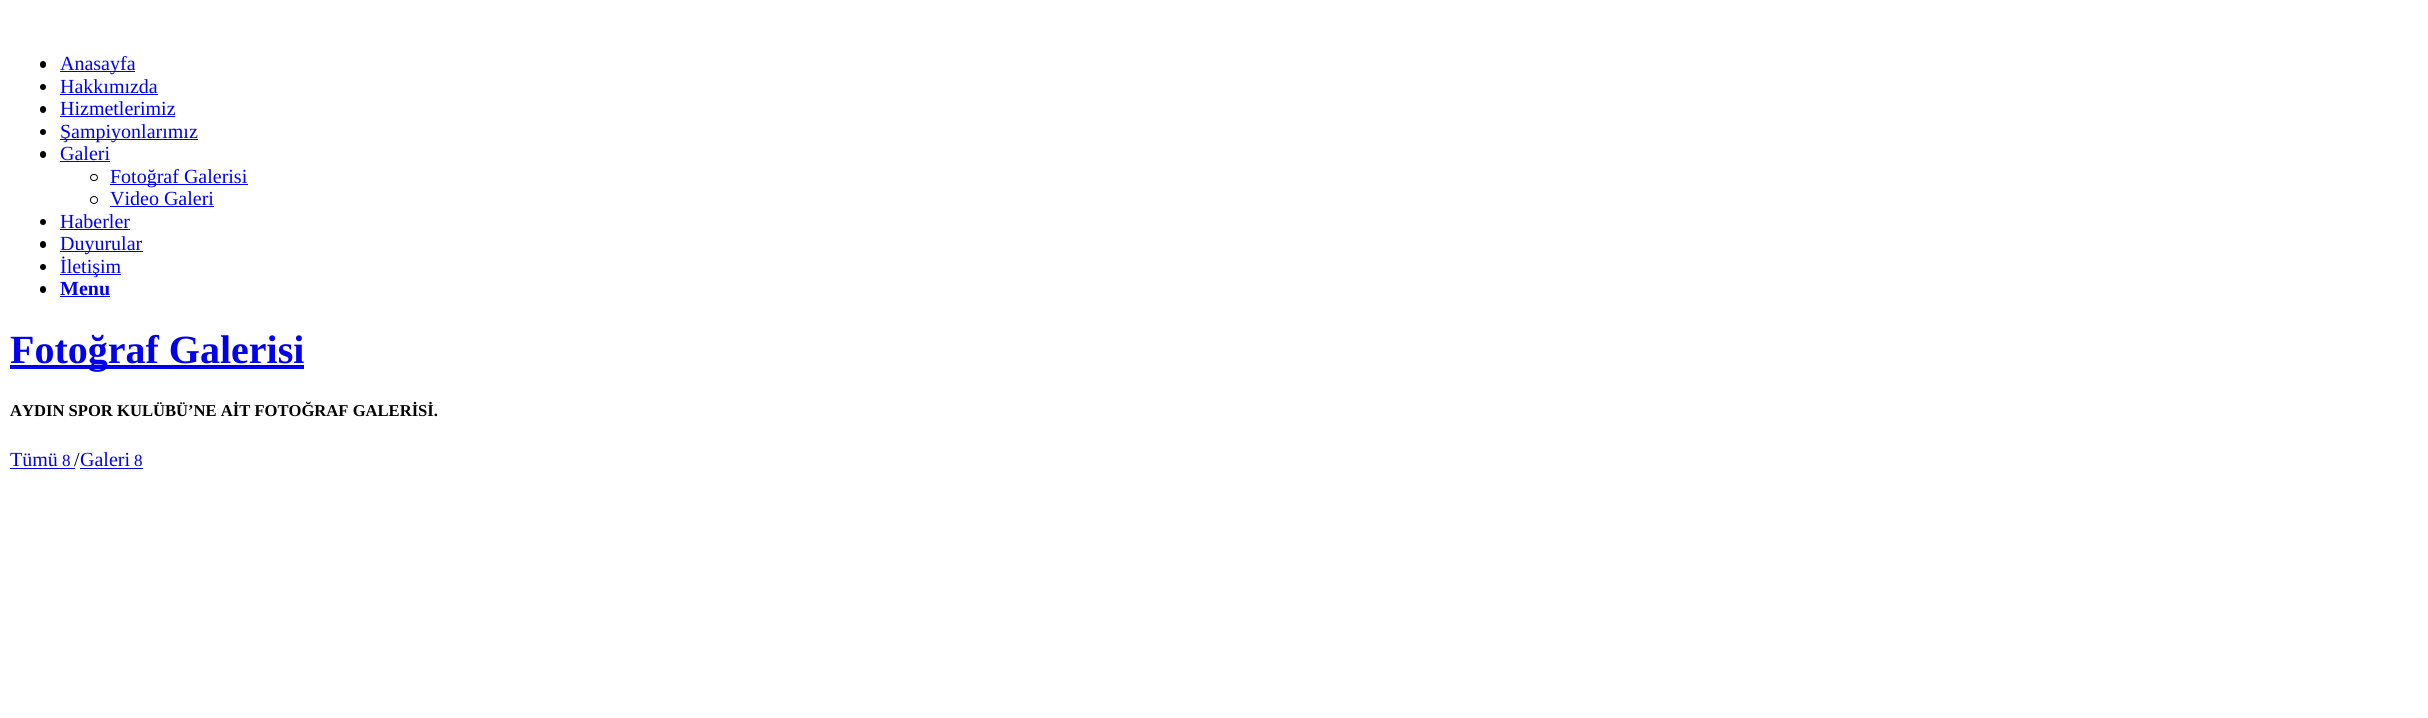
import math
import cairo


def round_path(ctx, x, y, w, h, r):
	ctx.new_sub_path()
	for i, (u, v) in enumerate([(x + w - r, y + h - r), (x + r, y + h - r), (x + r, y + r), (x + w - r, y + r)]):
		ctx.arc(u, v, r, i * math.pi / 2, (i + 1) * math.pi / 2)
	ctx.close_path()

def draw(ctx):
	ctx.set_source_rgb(1, 1, 1)
	ctx.paint()
	ctx.set_source_rgb(0, 0, 0)
	round_path(ctx, 40, 61, 6, 7, 3)
	ctx.fill()
	ctx.set_source_rgb(0, 0, 0.933)
	ctx.rectangle(60, 71, 75, 1)
	ctx.fill()
	ctx.select_font_face('Liberation Serif')
	ctx.set_font_size(20)
	ctx.move_to(60, 70)
	ctx.show_text('Anasayfa')
	ctx.set_source_rgb(0, 0, 0)
	ctx.new_path()
	ctx.arc(43, 87, 3, 0, 2 * math.pi)
	ctx.fill()
	ctx.set_source_rgb(0, 0, 0.933)
	ctx.move_to(60, 93)
	ctx.show_text('Hakkımızda')
	ctx.rectangle(60, 94, 98, 1)
	ctx.fill()
	ctx.set_source_rgb(0, 0, 0)
	round_path(ctx, 40, 106, 6, 7, 3)
	ctx.fill()
	ctx.set_source_rgb(0, 0, 0.933)
	ctx.move_to(60, 115)
	ctx.show_text('Hizmetlerimiz')
	ctx.rectangle(60, 116, 115, 1)
	ctx.fill()
	ctx.set_source_rgb(0, 0, 0)
	ctx.arc(43, 132, 3, 0, 2 * math.pi)
	ctx.fill()
	ctx.set_source_rgb(0, 0, 0.933)
	ctx.rectangle(60, 139, 138, 1)
	ctx.fill()
	ctx.move_to(60, 138)
	ctx.show_text('Şampiyonlarımız')
	ctx.set_source_rgb(0, 0, 0)
	round_path(ctx, 40, 151, 6, 7, 3)
	ctx.fill()
	ctx.set_source_rgb(0, 0, 0.933)
	ctx.move_to(60, 160)
	ctx.show_text('Galeri')
	ctx.rectangle(60, 161, 50, 1)
	ctx.fill()
	round_path(ctx, 90.5, 174.5, 7, 6, 3)
	ctx.set_source_rgb(0, 0, 0)
	ctx.set_line_width(1)
	ctx.stroke()
	ctx.set_source_rgb(0, 0, 0.933)
	ctx.rectangle(110, 184, 138, 1)
	ctx.fill()
	ctx.move_to(110, 183)
	ctx.show_text('Fotoğraf Galerisi')
	ctx.new_path()
	ctx.arc(94, 200, 3.5, 0, 2 * math.pi)
	ctx.set_source_rgb(0, 0, 0)
	ctx.stroke()
	ctx.set_source_rgb(0, 0, 0.933)
	ctx.move_to(110, 205)
	ctx.show_text('Video Galeri')
	ctx.rectangle(110, 206, 104, 1)
	ctx.fill()
	ctx.set_source_rgb(0, 0, 0)
	ctx.arc(43, 222, 3, 0, 2 * math.pi)
	ctx.fill()
	ctx.set_source_rgb(0, 0, 0.933)
	ctx.move_to(60, 228)
	ctx.show_text('Haberler')
	ctx.rectangle(60, 229, 70, 1)
	ctx.fill()
	ctx.set_source_rgb(0, 0, 0)
	round_path(ctx, 40, 241, 6, 7, 3)
	ctx.fill()
	ctx.set_source_rgb(0, 0, 0.933)
	ctx.rectangle(60, 251, 83, 1)
	ctx.fill()
	ctx.move_to(60, 250)
	ctx.show_text('Duyurular')
	ctx.set_source_rgb(0, 0, 0)
	ctx.new_path()
	ctx.arc(43, 267, 3, 0, 2 * math.pi)
	ctx.fill()
	ctx.set_source_rgb(0, 0, 0.933)
	ctx.rectangle(60, 274, 61, 1)
	ctx.fill()
	ctx.move_to(60, 273)
	ctx.show_text('İletişim')
	ctx.set_source_rgb(0, 0, 0)
	round_path(ctx, 40, 286, 6, 7, 3)
	ctx.fill()
	ctx.select_font_face('Liberation Serif', cairo.FONT_SLANT_NORMAL, cairo.FONT_WEIGHT_BOLD)
	ctx.set_source_rgb(0, 0, 0.933)
	ctx.move_to(60, 295)
	ctx.show_text('Menu')
	ctx.rectangle(60, 296, 50, 1)
	ctx.fill()
	ctx.rectangle(10, 365, 294, 4)
	ctx.fill()
	ctx.set_font_size(40)
	ctx.move_to(10, 363)
	ctx.show_text('Fotoğraf Galerisi')
	ctx.set_font_size(16.6)
	ctx.set_source_rgb(0, 0, 0)
	ctx.move_to(10, 416)
	ctx.show_text('AYDIN SPOR KULÜBÜ’NE AİT FOTOĞRAF GALERİSİ.')
	ctx.select_font_face('Liberation Serif')
	ctx.set_font_size(20)
	ctx.set_source_rgb(0, 0, 0.933)
	ctx.move_to(10, 466)
	ctx.show_text('Tümü')
	ctx.set_font_size(17)
	ctx.move_to(62, 466)
	ctx.show_text('8')
	ctx.rectangle(10, 468, 65, 1)
	ctx.fill()
	ctx.set_font_size(20)
	ctx.set_source_rgb(0, 0, 0)
	ctx.move_to(74, 466)
	ctx.show_text('/')
	ctx.set_source_rgb(0, 0, 0.933)
	ctx.move_to(80, 466)
	ctx.show_text('Galeri')
	ctx.set_font_size(17)
	ctx.move_to(134, 466)
	ctx.show_text('8')
	ctx.rectangle(80, 468, 63, 1)
	ctx.fill()


surface = cairo.ImageSurface(cairo.FORMAT_RGB24, 2428, 718)
ctx = cairo.Context(surface)
options = cairo.FontOptions()
options.set_hint_metrics(cairo.HINT_METRICS_OFF)
options.set_hint_style(cairo.HINT_STYLE_NONE)
ctx.set_font_options(options)
ctx.set_miter_limit(4)
draw(ctx)
surface.write_to_png('image.png')
